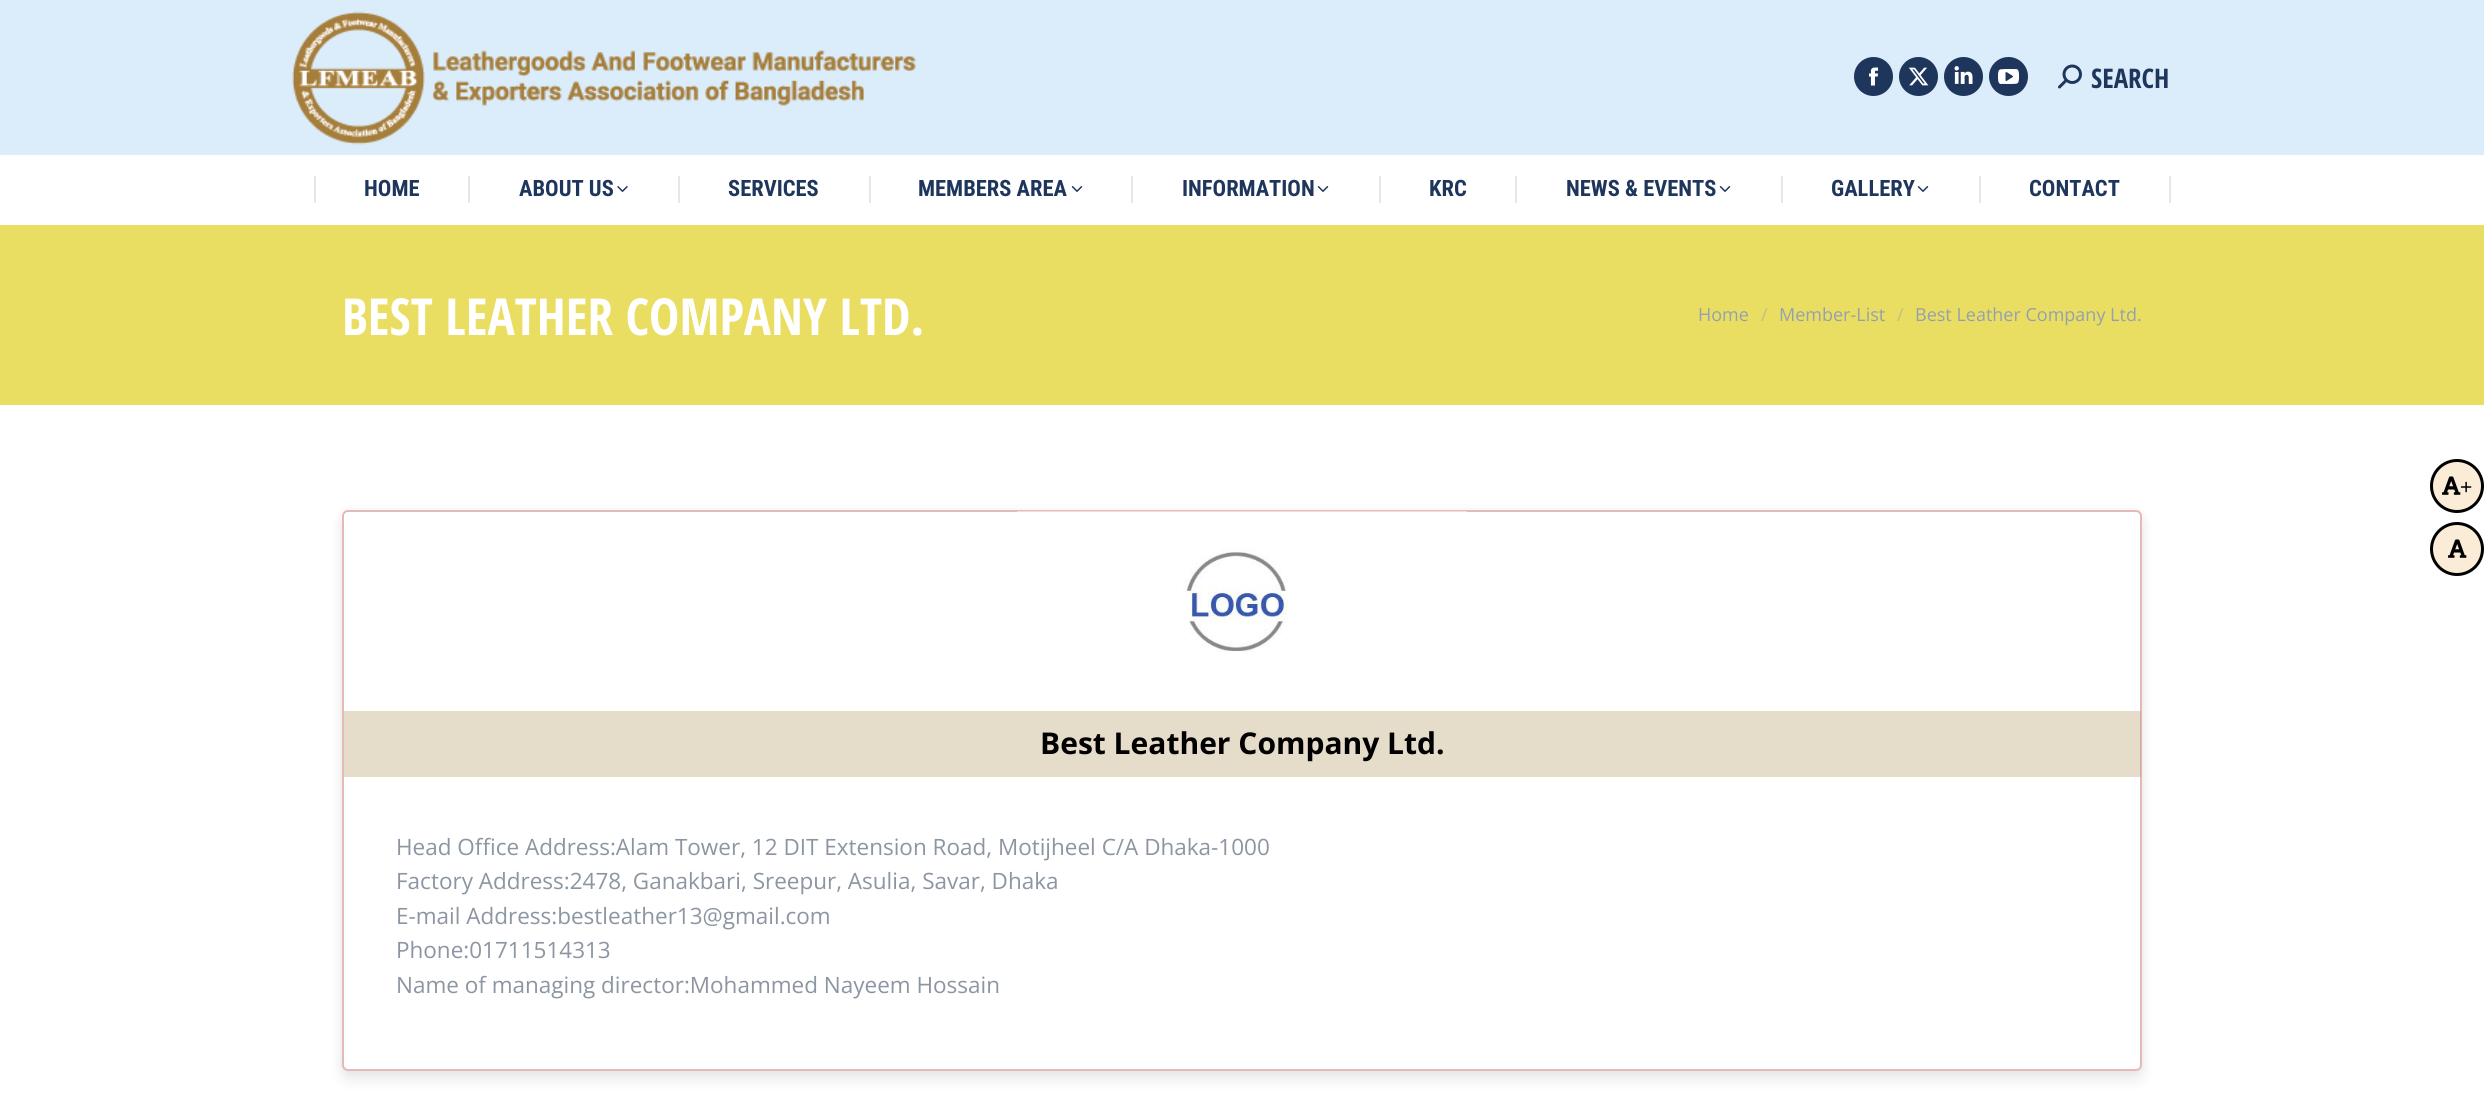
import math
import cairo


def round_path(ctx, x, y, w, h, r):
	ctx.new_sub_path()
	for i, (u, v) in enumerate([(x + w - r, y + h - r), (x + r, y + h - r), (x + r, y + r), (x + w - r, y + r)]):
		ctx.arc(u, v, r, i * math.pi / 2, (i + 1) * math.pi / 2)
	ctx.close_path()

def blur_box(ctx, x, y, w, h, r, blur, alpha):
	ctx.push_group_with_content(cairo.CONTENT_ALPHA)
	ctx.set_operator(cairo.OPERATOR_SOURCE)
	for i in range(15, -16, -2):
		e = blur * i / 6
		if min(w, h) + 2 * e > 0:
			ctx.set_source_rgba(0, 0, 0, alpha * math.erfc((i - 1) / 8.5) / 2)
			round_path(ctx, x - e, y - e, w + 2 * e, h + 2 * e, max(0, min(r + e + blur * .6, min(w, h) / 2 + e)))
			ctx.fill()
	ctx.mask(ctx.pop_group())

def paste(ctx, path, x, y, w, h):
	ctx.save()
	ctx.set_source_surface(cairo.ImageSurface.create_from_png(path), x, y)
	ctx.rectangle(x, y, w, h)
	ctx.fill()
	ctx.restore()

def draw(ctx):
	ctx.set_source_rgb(1, 1, 1)
	ctx.paint()
	ctx.set_source_rgb(0.859, 0.929, 0.984)
	ctx.rectangle(0, 0, 2484, 155)
	ctx.fill()
	paste(ctx, 'media/1.png', 292, 11, 624, 134)
	ctx.set_source_rgb(0.122, 0.212, 0.361)
	ctx.arc(1873.5, 76.5, 19.5, 0, 2 * math.pi)
	ctx.fill()
	paste(ctx, 'media/2.png', 1868, 67, 11, 19)
	ctx.arc(1918.5, 76.5, 19.5, 0, 2 * math.pi)
	ctx.fill()
	paste(ctx, 'media/3.png', 1908, 67, 21, 19)
	ctx.arc(1963.5, 76.5, 19.5, 0, 2 * math.pi)
	ctx.fill()
	paste(ctx, 'media/4.png', 1954, 66, 19, 18)
	ctx.arc(2008.5, 76.5, 19.5, 0, 2 * math.pi)
	ctx.fill()
	paste(ctx, 'media/5.png', 1998, 69, 21, 15)
	paste(ctx, 'media/6.png', 2058, 64, 24, 25)
	ctx.select_font_face('Open Sans Condensed', cairo.FONT_SLANT_NORMAL, cairo.FONT_WEIGHT_BOLD)
	ctx.set_font_size(27)
	ctx.move_to(2091, 88)
	ctx.show_text('SEARCH')
	ctx.set_source_rgb(0.906, 0.906, 0.906)
	ctx.rectangle(314, 176, 2, 27)
	ctx.fill()
	ctx.select_font_face('Roboto Condensed', cairo.FONT_SLANT_NORMAL, cairo.FONT_WEIGHT_BOLD)
	ctx.set_font_size(22.5)
	ctx.set_source_rgb(0.122, 0.212, 0.361)
	ctx.move_to(364, 196)
	ctx.show_text('HOME')
	ctx.set_source_rgb(0.906, 0.906, 0.906)
	ctx.rectangle(468, 176, 2, 27)
	ctx.fill()
	ctx.set_source_rgb(0.122, 0.212, 0.361)
	ctx.move_to(519, 196)
	ctx.show_text('ABOUT US')
	paste(ctx, 'media/7.png', 617, 186, 11, 6)
	ctx.set_source_rgb(0.906, 0.906, 0.906)
	ctx.rectangle(678, 176, 2, 27)
	ctx.fill()
	ctx.set_source_rgb(0.122, 0.212, 0.361)
	ctx.move_to(728, 196)
	ctx.show_text('SERVICES')
	ctx.set_source_rgb(0.906, 0.906, 0.906)
	ctx.rectangle(869, 176, 2, 27)
	ctx.fill()
	ctx.set_source_rgb(0.122, 0.212, 0.361)
	ctx.move_to(918, 196)
	ctx.show_text('MEMBERS AREA')
	paste(ctx, 'media/8.png', 1071, 186, 12, 6)
	ctx.set_source_rgb(0.906, 0.906, 0.906)
	ctx.rectangle(1131, 176, 2, 27)
	ctx.fill()
	ctx.set_source_rgb(0.122, 0.212, 0.361)
	ctx.move_to(1182, 196)
	ctx.show_text('INFORMATION')
	paste(ctx, 'media/8.png', 1317, 186, 12, 6)
	ctx.set_source_rgb(0.906, 0.906, 0.906)
	ctx.rectangle(1379, 176, 2, 27)
	ctx.fill()
	ctx.set_source_rgb(0.122, 0.212, 0.361)
	ctx.move_to(1429, 196)
	ctx.show_text('KRC')
	ctx.set_source_rgb(0.906, 0.906, 0.906)
	ctx.rectangle(1515, 176, 2, 27)
	ctx.fill()
	ctx.set_source_rgb(0.122, 0.212, 0.361)
	ctx.move_to(1566, 196)
	ctx.show_text('NEWS & EVENTS')
	paste(ctx, 'media/8.png', 1719, 186, 12, 6)
	ctx.set_source_rgb(0.906, 0.906, 0.906)
	ctx.rectangle(1781, 176, 2, 27)
	ctx.fill()
	ctx.set_source_rgb(0.122, 0.212, 0.361)
	ctx.move_to(1831, 196)
	ctx.show_text('GALLERY')
	paste(ctx, 'media/8.png', 1917, 186, 12, 6)
	ctx.set_source_rgb(0.906, 0.906, 0.906)
	ctx.rectangle(1979, 176, 2, 27)
	ctx.fill()
	ctx.set_source_rgb(0.122, 0.212, 0.361)
	ctx.move_to(2029, 196)
	ctx.show_text('CONTACT')
	ctx.set_source_rgb(0.906, 0.906, 0.906)
	ctx.rectangle(2169, 176, 2, 27)
	ctx.fill()
	ctx.set_source_rgb(0.914, 0.871, 0.384)
	ctx.rectangle(0, 225, 2484, 180)
	ctx.fill()
	ctx.select_font_face('Open Sans Condensed', cairo.FONT_SLANT_NORMAL, cairo.FONT_WEIGHT_BOLD)
	ctx.set_font_size(51)
	ctx.set_source_rgb(1, 1, 1)
	ctx.move_to(342, 335)
	ctx.show_text('BEST LEATHER COMPANY LTD.')
	ctx.select_font_face('Open Sans')
	ctx.set_font_size(18)
	ctx.set_source_rgb(0.58, 0.624, 0.698)
	ctx.move_to(1698, 321)
	ctx.show_text('Home')
	ctx.set_source_rgb(0.749, 0.749, 0.541)
	ctx.move_to(1761, 321)
	ctx.show_text('/')
	ctx.set_source_rgb(0.58, 0.624, 0.698)
	ctx.move_to(1779, 321)
	ctx.show_text('Member-List')
	ctx.set_source_rgb(0.749, 0.749, 0.541)
	ctx.move_to(1897, 321)
	ctx.show_text('/')
	ctx.set_source_rgb(0.58, 0.624, 0.698)
	ctx.move_to(1915, 321)
	ctx.show_text('Best Leather Company Ltd.')
	ctx.set_source_rgb(0.98, 0.922, 0.843)
	ctx.new_path()
	ctx.arc(2457, 486, 25.5, 0, 2 * math.pi)
	ctx.fill_preserve()
	ctx.set_source_rgb(0, 0, 0)
	ctx.set_line_width(3)
	ctx.stroke()
	paste(ctx, 'media/9.png', 2442, 476, 19, 19)
	ctx.select_font_face('Liberation Sans')
	ctx.set_font_size(21)
	ctx.move_to(2460, 494)
	ctx.show_text('+')
	ctx.set_source_rgb(0.98, 0.922, 0.843)
	ctx.new_path()
	ctx.arc(2457, 549, 25.5, 0, 2 * math.pi)
	ctx.fill_preserve()
	ctx.set_source_rgb(0, 0, 0)
	ctx.stroke()
	paste(ctx, 'media/9.png', 2448, 539, 19, 19)
	ctx.set_source_rgb(0, 0, 0)
	blur_box(ctx, 342, 510, 1800, 561, 6, 4.5, 0.05)
	blur_box(ctx, 342, 519, 1800, 561, 6, 7.5, 0.08)
	ctx.set_source_rgb(1, 1, 1)
	round_path(ctx, 343, 511, 1798, 559, 5)
	ctx.fill_preserve()
	ctx.set_source_rgb(0.902, 0.725, 0.725)
	ctx.set_line_width(2)
	ctx.stroke()
	paste(ctx, 'media/10.png', 1017, 511, 450, 142)
	ctx.set_source_rgba(0.651, 0.494, 0.235, 0.27)
	ctx.rectangle(344, 711, 1797, 66)
	ctx.fill()
	ctx.select_font_face('Open Sans', cairo.FONT_SLANT_NORMAL, cairo.FONT_WEIGHT_BOLD)
	ctx.set_font_size(30)
	ctx.set_source_rgb(0, 0, 0)
	ctx.move_to(1040, 754)
	ctx.show_text('Best Leather Company Ltd.')
	ctx.select_font_face('Open Sans')
	ctx.set_font_size(22.5)
	ctx.set_source_rgb(0.549, 0.584, 0.635)
	for x, y, s in [
		(396, 855, 'Head Office Address:Alam Tower, 12 DIT Extension Road, Motijheel C/A Dhaka-1000'),
		(396, 889, 'Factory Address:2478, Ganakbari, Sreepur, Asulia, Savar, Dhaka'),
		(396, 924, 'E-mail Address:bestleather13@gmail.com'),
		(396, 958, 'Phone:01711514313'),
		(396, 993, 'Name of managing director:Mohammed Nayeem Hossain'),
	]:
		ctx.move_to(x, y)
		ctx.show_text(s)


surface = cairo.ImageSurface(cairo.FORMAT_RGB24, 2484, 1097)
ctx = cairo.Context(surface)
options = cairo.FontOptions()
options.set_hint_metrics(cairo.HINT_METRICS_OFF)
options.set_hint_style(cairo.HINT_STYLE_NONE)
ctx.set_font_options(options)
ctx.set_miter_limit(4)
draw(ctx)
surface.write_to_png('image.png')
